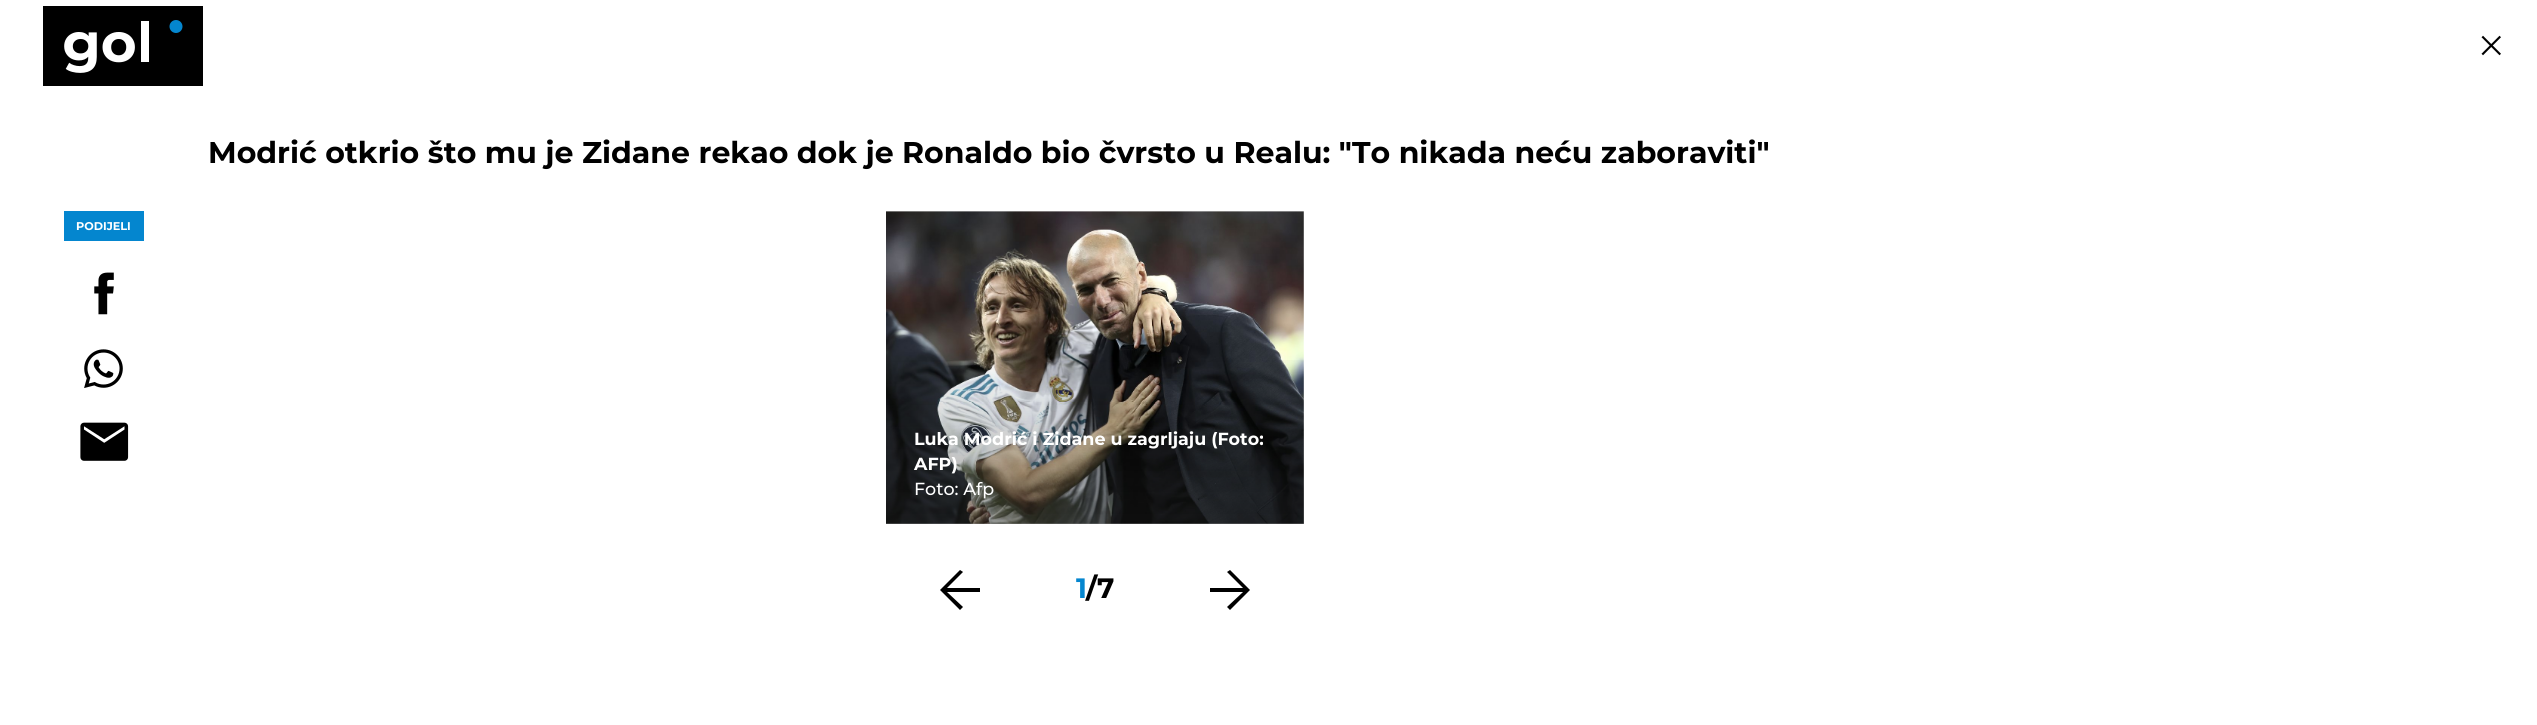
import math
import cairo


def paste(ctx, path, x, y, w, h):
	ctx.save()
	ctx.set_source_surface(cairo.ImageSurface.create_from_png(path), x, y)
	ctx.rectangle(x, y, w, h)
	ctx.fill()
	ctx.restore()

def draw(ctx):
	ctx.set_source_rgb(1, 1, 1)
	ctx.paint()
	paste(ctx, 'media/1.png', 43, 6, 160, 80)
	paste(ctx, 'media/2.png', 2481, 35, 20, 21)
	ctx.select_font_face('Montserrat', cairo.FONT_SLANT_NORMAL, cairo.FONT_WEIGHT_BOLD)
	ctx.set_font_size(30)
	ctx.set_source_rgb(0, 0, 0)
	ctx.move_to(208, 163)
	ctx.show_text('Modrić otkrio što mu je Zidane rekao dok je Ronaldo bio čvrsto u Realu: "To nikada neću zaboraviti"')
	ctx.set_source_rgb(0.016, 0.525, 0.812)
	ctx.rectangle(64, 211, 80, 30)
	ctx.fill()
	ctx.set_font_size(11.25)
	ctx.set_source_rgb(1, 1, 1)
	ctx.move_to(76, 230)
	ctx.show_text('PODIJELI')
	paste(ctx, 'media/3.png', 94, 272, 20, 43)
	paste(ctx, 'media/4.png', 84, 349, 39, 39)
	paste(ctx, 'media/5.png', 80, 422, 49, 39)
	paste(ctx, 'media/6.png', 886, 211, 418, 313)
	gradient = cairo.LinearGradient(1095, 524, 1095, 351)
	gradient.add_color_stop_rgba(0, 0.078, 0.078, 0.078, 0.4)
	gradient.add_color_stop_rgba(1, 0.078, 0.078, 0.078, 0)
	ctx.set_source(gradient)
	ctx.rectangle(886, 360, 418, 164)
	ctx.fill()
	ctx.set_font_size(17.5)
	ctx.set_source_rgb(1, 1, 1)
	ctx.move_to(914, 445)
	ctx.show_text('Luka Modrić i Zidane u zagrljaju (Foto:')
	ctx.move_to(914, 470)
	ctx.show_text('AFP)')
	ctx.select_font_face('Montserrat Medium')
	ctx.move_to(914, 495)
	ctx.show_text('Foto: Afp')
	ctx.set_source_rgb(0, 0, 0)
	ctx.new_path()
	ctx.move_to(960, 610)
	ctx.line_to(963, 607)
	ctx.line_to(947, 592)
	ctx.line_to(980, 592)
	ctx.line_to(980, 588)
	ctx.line_to(947, 588)
	ctx.line_to(963, 572)
	ctx.line_to(960, 570)
	ctx.line_to(940, 590)
	ctx.close_path()
	ctx.fill()
	ctx.select_font_face('Montserrat', cairo.FONT_SLANT_NORMAL, cairo.FONT_WEIGHT_BOLD)
	ctx.set_font_size(28)
	ctx.set_source_rgb(0.016, 0.525, 0.812)
	ctx.move_to(1076, 598)
	ctx.show_text('1')
	ctx.set_source_rgb(0, 0, 0)
	ctx.move_to(1086, 598)
	ctx.show_text('/7')
	ctx.new_path()
	ctx.move_to(1230, 610)
	ctx.line_to(1227, 607)
	ctx.line_to(1243, 592)
	ctx.line_to(1210, 592)
	ctx.line_to(1210, 588)
	ctx.line_to(1243, 588)
	ctx.line_to(1227, 572)
	ctx.line_to(1230, 570)
	ctx.line_to(1250, 590)
	ctx.close_path()
	ctx.fill()


surface = cairo.ImageSurface(cairo.FORMAT_RGB24, 2537, 725)
ctx = cairo.Context(surface)
options = cairo.FontOptions()
options.set_hint_metrics(cairo.HINT_METRICS_OFF)
options.set_hint_style(cairo.HINT_STYLE_NONE)
ctx.set_font_options(options)
ctx.set_miter_limit(4)
draw(ctx)
surface.write_to_png('image.png')
